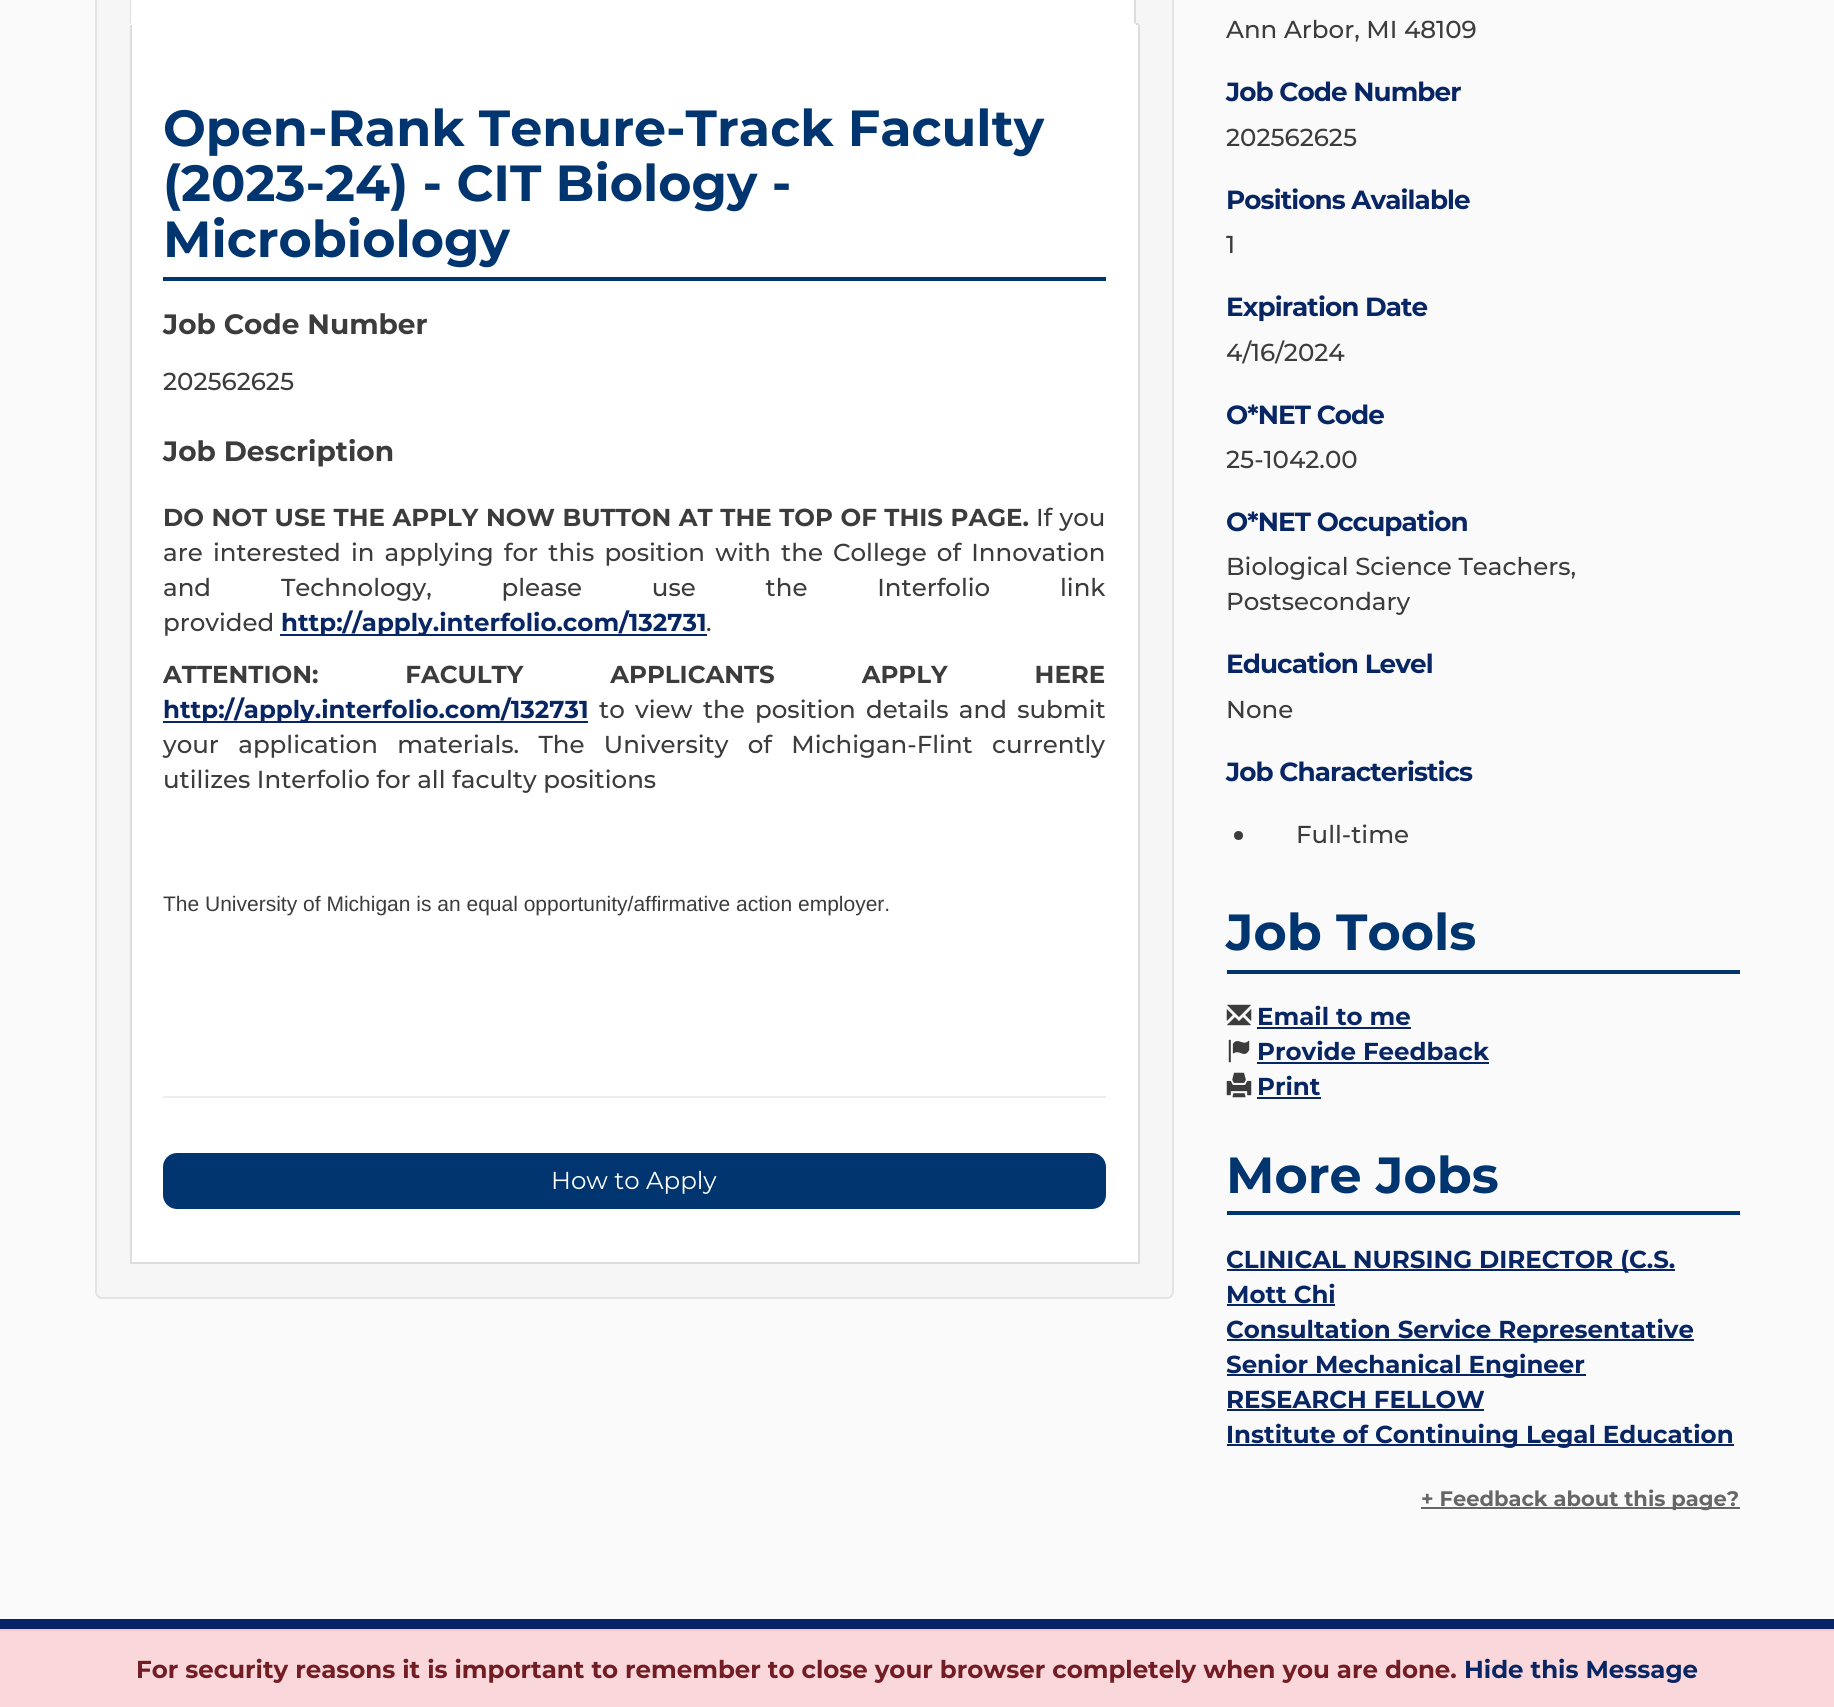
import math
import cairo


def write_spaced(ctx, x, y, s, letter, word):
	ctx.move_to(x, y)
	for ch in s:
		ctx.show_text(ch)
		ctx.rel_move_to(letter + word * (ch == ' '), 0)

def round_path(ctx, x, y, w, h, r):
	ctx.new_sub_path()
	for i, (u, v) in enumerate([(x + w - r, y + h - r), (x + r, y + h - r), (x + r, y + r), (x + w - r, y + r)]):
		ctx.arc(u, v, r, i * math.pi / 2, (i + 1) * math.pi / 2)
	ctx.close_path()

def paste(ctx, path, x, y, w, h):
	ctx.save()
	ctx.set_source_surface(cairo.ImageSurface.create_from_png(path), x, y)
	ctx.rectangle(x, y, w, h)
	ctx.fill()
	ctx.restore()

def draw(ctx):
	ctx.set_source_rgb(0.98, 0.98, 0.98)
	ctx.paint()
	ctx.set_source_rgb(0.961, 0.961, 0.961)
	round_path(ctx, 96, -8, 1077, 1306, 6)
	ctx.fill_preserve()
	ctx.set_source_rgb(0.89, 0.89, 0.89)
	ctx.stroke()
	ctx.set_source_rgb(0.867, 0.867, 0.867)
	ctx.rectangle(1136, 23, 3, 2)
	ctx.fill()
	ctx.set_source_rgb(1, 1, 1)
	ctx.rectangle(130, 0, 1006, 25)
	ctx.fill()
	ctx.set_source_rgb(0.867, 0.867, 0.867)
	ctx.new_path()
	ctx.move_to(1136, 24)
	ctx.line_to(1134, 23)
	ctx.line_to(1134, -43)
	ctx.line_to(1132, -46)
	ctx.line_to(1134, -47)
	ctx.line_to(1136, -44)
	ctx.close_path()
	ctx.fill()
	ctx.new_path()
	ctx.move_to(132, -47)
	ctx.curve_to(131, -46, 130, -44, 130, -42)
	ctx.line_to(130, 24)
	ctx.line_to(131, 23)
	ctx.line_to(131, -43)
	ctx.line_to(133, -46)
	ctx.close_path()
	ctx.fill()
	ctx.set_source_rgb(1, 1, 1)
	ctx.rectangle(132, 25, 1006, 1237)
	ctx.fill()
	ctx.set_source_rgb(0.867, 0.867, 0.867)
	ctx.rectangle(1138, 25, 2, 1239)
	ctx.rectangle(130, 1262, 1009, 2)
	ctx.rectangle(130, 25, 2, 1239)
	ctx.fill()
	ctx.set_source_rgb(0, 0.208, 0.435)
	ctx.rectangle(163, 277, 943, 4)
	ctx.fill()
	ctx.select_font_face('Montserrat', cairo.FONT_SLANT_NORMAL, cairo.FONT_WEIGHT_BOLD)
	ctx.set_font_size(50.75)
	for x, y, s in [
		(163, 146, 'Open-Rank Tenure-Track Faculty'),
		(163, 201, '(2023-24) - CIT Biology -'),
		(163, 257, 'Microbiology'),
	]:
		ctx.move_to(x, y)
		ctx.show_text(s)
	ctx.set_font_size(28)
	ctx.set_source_rgb(0.235, 0.235, 0.235)
	ctx.move_to(163, 334)
	ctx.show_text('Job Code Number')
	ctx.select_font_face('Montserrat Medium')
	ctx.set_font_size(24.5)
	ctx.move_to(163, 390)
	ctx.show_text('202562625')
	ctx.select_font_face('Montserrat', cairo.FONT_SLANT_NORMAL, cairo.FONT_WEIGHT_BOLD)
	ctx.set_font_size(28)
	ctx.move_to(163, 461)
	ctx.show_text('Job Description')
	ctx.set_font_size(24.5)
	write_spaced(ctx, 163, 526, 'DO NOT USE THE APPLY NOW BUTTON AT THE TOP OF THIS PAGE.', 0, 0.6)
	ctx.select_font_face('Montserrat Medium')
	write_spaced(ctx, 1036, 526, 'If you', 0, 0.6)
	write_spaced(ctx, 163, 561, 'are interested in applying for this position with the College of Innovation', 0, 3.6)
	write_spaced(ctx, 163, 596, 'and Technology, please use the Interfolio link', 0, 63.25)
	ctx.move_to(163, 631)
	ctx.show_text('provided')
	ctx.set_source_rgb(0.039, 0.149, 0.392)
	ctx.rectangle(280, 634, 427, 2)
	ctx.fill()
	ctx.select_font_face('Montserrat', cairo.FONT_SLANT_NORMAL, cairo.FONT_WEIGHT_BOLD)
	ctx.move_to(281, 631)
	ctx.show_text('http://apply.interfolio.com/132731')
	ctx.select_font_face('Montserrat Medium')
	ctx.set_source_rgb(0.235, 0.235, 0.235)
	ctx.move_to(706, 631)
	ctx.show_text('.')
	ctx.select_font_face('Montserrat', cairo.FONT_SLANT_NORMAL, cairo.FONT_WEIGHT_BOLD)
	write_spaced(ctx, 163, 683, 'ATTENTION: FACULTY APPLICANTS APPLY HERE', 0, 80)
	ctx.set_source_rgb(0.039, 0.149, 0.392)
	ctx.rectangle(163, 721, 425, 2)
	ctx.fill()
	ctx.move_to(163, 718)
	ctx.show_text('http://apply.interfolio.com/132731')
	ctx.select_font_face('Montserrat Medium')
	ctx.set_source_rgb(0.235, 0.235, 0.235)
	write_spaced(ctx, 599, 718, 'to view the position details and submit', 0, 3.75)
	write_spaced(ctx, 163, 753, 'your application materials. The University of Michigan-Flint currently', 0, 12.75)
	ctx.move_to(163, 788)
	ctx.show_text('utilizes Interfolio for all faculty positions')
	ctx.select_font_face('Liberation Sans')
	ctx.set_font_size(21)
	ctx.move_to(163, 911)
	ctx.show_text('The University of Michigan is an equal opportunity/affirmative action employer.')
	ctx.set_source_rgb(0.933, 0.933, 0.933)
	ctx.rectangle(163, 1096, 943, 2)
	ctx.fill()
	ctx.set_source_rgb(0, 0.208, 0.435)
	round_path(ctx, 163, 1153, 943, 56, 14)
	ctx.fill()
	ctx.select_font_face('Montserrat')
	ctx.set_font_size(24.5)
	ctx.set_source_rgb(1, 1, 1)
	ctx.move_to(551, 1189)
	ctx.show_text('How to Apply')
	ctx.select_font_face('Montserrat Medium')
	ctx.set_source_rgb(0.235, 0.235, 0.235)
	ctx.move_to(1226, 38)
	ctx.show_text('Ann Arbor, MI 48109')
	ctx.select_font_face('Montserrat', cairo.FONT_SLANT_NORMAL, cairo.FONT_WEIGHT_BOLD)
	ctx.set_font_size(26.25)
	ctx.set_source_rgb(0.039, 0.149, 0.392)
	write_spaced(ctx, 1226, 101, 'Job Code Number', -0.9, 0)
	ctx.select_font_face('Montserrat Medium')
	ctx.set_font_size(24.5)
	ctx.set_source_rgb(0.235, 0.235, 0.235)
	ctx.move_to(1226, 146)
	ctx.show_text('202562625')
	ctx.select_font_face('Montserrat', cairo.FONT_SLANT_NORMAL, cairo.FONT_WEIGHT_BOLD)
	ctx.set_font_size(26.25)
	ctx.set_source_rgb(0.039, 0.149, 0.392)
	write_spaced(ctx, 1226, 209, 'Positions Available', -0.9, 0)
	ctx.select_font_face('Montserrat Medium')
	ctx.set_font_size(24.5)
	ctx.set_source_rgb(0.235, 0.235, 0.235)
	ctx.move_to(1226, 253)
	ctx.show_text('1')
	ctx.select_font_face('Montserrat', cairo.FONT_SLANT_NORMAL, cairo.FONT_WEIGHT_BOLD)
	ctx.set_font_size(26.25)
	ctx.set_source_rgb(0.039, 0.149, 0.392)
	write_spaced(ctx, 1226, 316, 'Expiration Date', -0.9, 0)
	ctx.select_font_face('Montserrat Medium')
	ctx.set_font_size(24.5)
	ctx.set_source_rgb(0.235, 0.235, 0.235)
	ctx.move_to(1226, 361)
	ctx.show_text('4/16/2024')
	ctx.select_font_face('Montserrat', cairo.FONT_SLANT_NORMAL, cairo.FONT_WEIGHT_BOLD)
	ctx.set_font_size(26.25)
	ctx.set_source_rgb(0.039, 0.149, 0.392)
	write_spaced(ctx, 1226, 424, 'O*NET Code', -0.9, 0)
	ctx.select_font_face('Montserrat Medium')
	ctx.set_font_size(24.5)
	ctx.set_source_rgb(0.235, 0.235, 0.235)
	ctx.move_to(1226, 468)
	ctx.show_text('25-1042.00')
	ctx.select_font_face('Montserrat', cairo.FONT_SLANT_NORMAL, cairo.FONT_WEIGHT_BOLD)
	ctx.set_font_size(26.25)
	ctx.set_source_rgb(0.039, 0.149, 0.392)
	write_spaced(ctx, 1226, 531, 'O*NET Occupation', -0.9, 0)
	ctx.select_font_face('Montserrat Medium')
	ctx.set_font_size(24.5)
	ctx.set_source_rgb(0.235, 0.235, 0.235)
	ctx.move_to(1226, 575)
	ctx.show_text('Biological Science Teachers,')
	ctx.move_to(1226, 610)
	ctx.show_text('Postsecondary')
	ctx.select_font_face('Montserrat', cairo.FONT_SLANT_NORMAL, cairo.FONT_WEIGHT_BOLD)
	ctx.set_font_size(26.25)
	ctx.set_source_rgb(0.039, 0.149, 0.392)
	write_spaced(ctx, 1226, 673, 'Education Level', -0.9, 0)
	ctx.select_font_face('Montserrat Medium')
	ctx.set_font_size(24.5)
	ctx.set_source_rgb(0.235, 0.235, 0.235)
	ctx.move_to(1226, 718)
	ctx.show_text('None')
	ctx.select_font_face('Montserrat', cairo.FONT_SLANT_NORMAL, cairo.FONT_WEIGHT_BOLD)
	ctx.set_font_size(26.25)
	ctx.set_source_rgb(0.039, 0.149, 0.392)
	write_spaced(ctx, 1226, 781, 'Job Characteristics', -0.9, 0)
	ctx.set_source_rgb(0.235, 0.235, 0.235)
	ctx.new_path()
	ctx.arc(1238.5, 835.5, 4.5, 0, 2 * math.pi)
	ctx.fill()
	ctx.select_font_face('Montserrat Medium')
	ctx.set_font_size(24.5)
	ctx.move_to(1296, 843)
	ctx.show_text('Full-time')
	ctx.set_source_rgb(0, 0.208, 0.435)
	ctx.rectangle(1227, 970, 513, 4)
	ctx.fill()
	ctx.select_font_face('Montserrat', cairo.FONT_SLANT_NORMAL, cairo.FONT_WEIGHT_BOLD)
	ctx.set_font_size(50.75)
	ctx.move_to(1226, 950)
	ctx.show_text('Job Tools')
	paste(ctx, 'media/1.png', 1226, 1004, 26, 22)
	ctx.set_font_size(24.5)
	ctx.set_source_rgb(0.039, 0.149, 0.392)
	ctx.move_to(1257, 1025)
	ctx.show_text('Email to me')
	ctx.rectangle(1257, 1027, 154, 2)
	ctx.fill()
	paste(ctx, 'media/2.png', 1228, 1039, 22, 24)
	ctx.move_to(1257, 1060)
	ctx.show_text('Provide Feedback')
	ctx.rectangle(1257, 1062, 232, 2)
	ctx.fill()
	paste(ctx, 'media/3.png', 1226, 1072, 26, 26)
	ctx.move_to(1257, 1095)
	ctx.show_text('Print')
	ctx.rectangle(1257, 1097, 64, 2)
	ctx.fill()
	ctx.set_source_rgb(0, 0.208, 0.435)
	ctx.rectangle(1227, 1211, 513, 4)
	ctx.fill()
	ctx.set_font_size(50.75)
	ctx.move_to(1226, 1193)
	ctx.show_text('More Jobs')
	ctx.set_source_rgb(0.039, 0.149, 0.392)
	ctx.rectangle(1227, 1269, 448, 2)
	ctx.fill()
	ctx.set_font_size(24.5)
	ctx.move_to(1226, 1268)
	ctx.show_text('CLINICAL NURSING DIRECTOR (C.S.')
	ctx.move_to(1226, 1303)
	ctx.show_text('Mott Chi')
	ctx.rectangle(1227, 1304, 108, 2)
	ctx.fill()
	ctx.rectangle(1227, 1339, 467, 2)
	ctx.fill()
	ctx.move_to(1226, 1338)
	ctx.show_text('Consultation Service Representative')
	ctx.rectangle(1227, 1374, 359, 2)
	ctx.fill()
	ctx.move_to(1226, 1373)
	ctx.show_text('Senior Mechanical Engineer')
	ctx.move_to(1226, 1408)
	ctx.show_text('RESEARCH FELLOW')
	ctx.rectangle(1227, 1409, 257, 2)
	ctx.fill()
	ctx.rectangle(1227, 1444, 507, 2)
	ctx.fill()
	ctx.move_to(1226, 1443)
	ctx.show_text('Institute of Continuing Legal Education')
	ctx.set_source_rgb(0.4, 0.4, 0.4)
	ctx.rectangle(1421, 1507, 319, 2)
	ctx.fill()
	ctx.set_font_size(21)
	ctx.move_to(1421, 1506)
	ctx.show_text('+ Feedback about this page?')
	ctx.set_source_rgb(0.027, 0.141, 0.4)
	ctx.rectangle(0, 1619, 1834, 10)
	ctx.fill()
	ctx.set_source_rgb(0.973, 0.843, 0.855)
	ctx.rectangle(0, 1631, 1834, 76)
	ctx.fill()
	ctx.set_source_rgb(0.961, 0.776, 0.796)
	ctx.rectangle(0, 1629, 1834, 2)
	ctx.fill()
	ctx.set_font_size(24.5)
	ctx.set_source_rgb(0.447, 0.11, 0.141)
	ctx.move_to(136, 1678)
	ctx.show_text('For security reasons it is important to remember to close your browser completely when you are done.')
	ctx.set_source_rgb(0.039, 0.149, 0.392)
	ctx.move_to(1464, 1678)
	ctx.show_text('Hide this Message')


surface = cairo.ImageSurface(cairo.FORMAT_RGB24, 1834, 1707)
ctx = cairo.Context(surface)
options = cairo.FontOptions()
options.set_hint_metrics(cairo.HINT_METRICS_OFF)
options.set_hint_style(cairo.HINT_STYLE_NONE)
ctx.set_font_options(options)
ctx.set_miter_limit(4)
draw(ctx)
surface.write_to_png('image.png')
